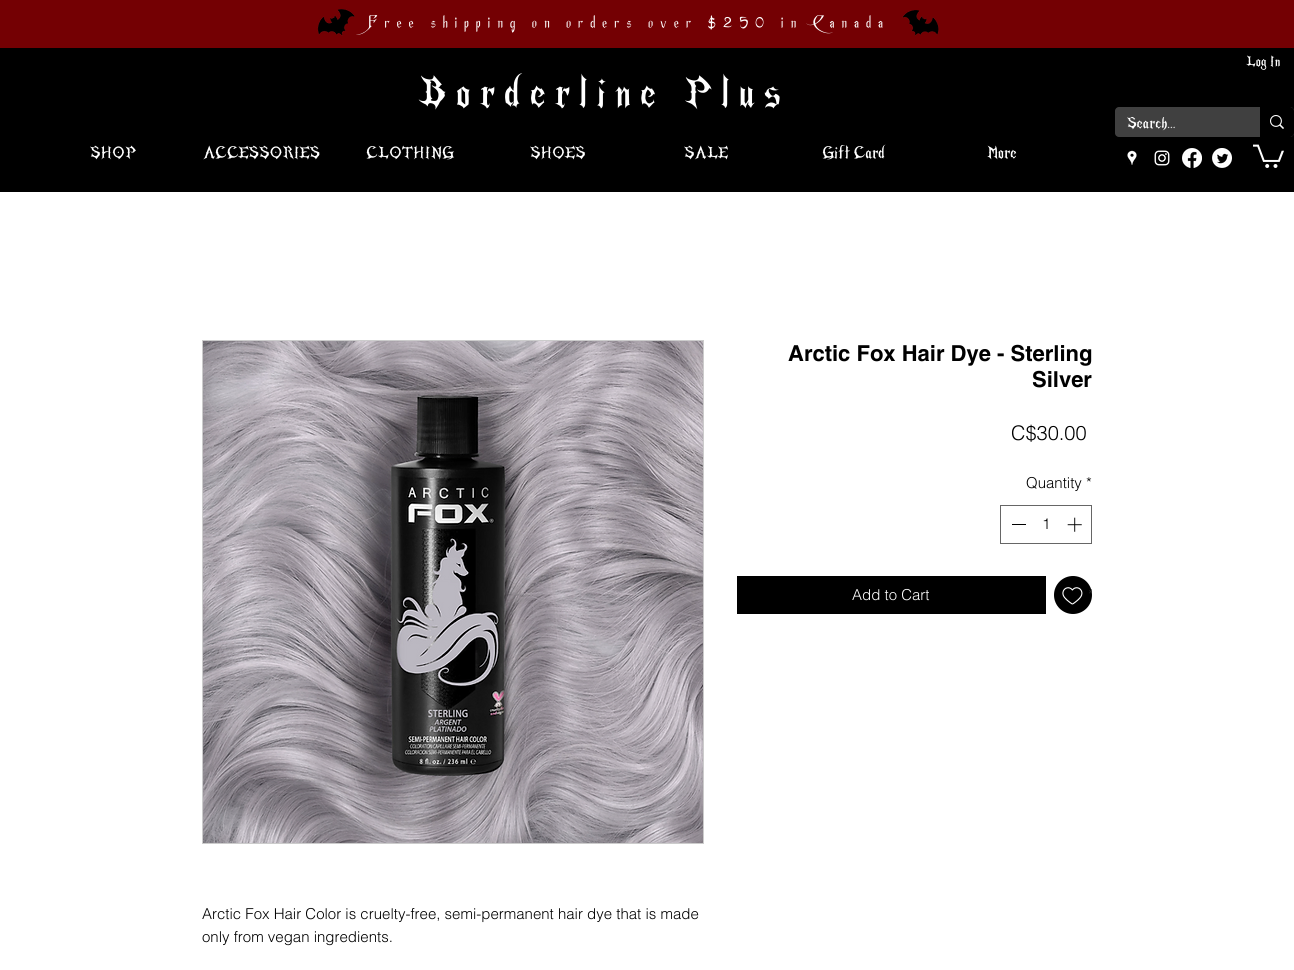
import math
import cairo


def write_spaced(ctx, x, y, s, letter, word):
	ctx.move_to(x, y)
	for ch in s:
		ctx.show_text(ch)
		ctx.rel_move_to(letter + word * (ch == ' '), 0)

def round_path(ctx, x, y, w, h, r):
	ctx.new_sub_path()
	for i, (u, v) in enumerate([(x + w - r, y + h - r), (x + r, y + h - r), (x + r, y + r), (x + w - r, y + r)]):
		ctx.arc(u, v, r, i * math.pi / 2, (i + 1) * math.pi / 2)
	ctx.close_path()

def paste(ctx, path, x, y, w, h):
	ctx.save()
	ctx.set_source_surface(cairo.ImageSurface.create_from_png(path), x, y)
	ctx.rectangle(x, y, w, h)
	ctx.fill()
	ctx.restore()

def draw(ctx):
	ctx.set_source_rgb(1, 1, 1)
	ctx.paint()
	ctx.set_source_rgb(0.455, 0, 0.012)
	ctx.rectangle(0, 0, 1294, 48)
	ctx.fill()
	paste(ctx, 'media/1.png', 317, 9, 38, 27)
	ctx.select_font_face('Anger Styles')
	ctx.set_font_size(15)
	ctx.set_source_rgb(1, 1, 1)
	write_spaced(ctx, 367, 28, 'Free shipping on orders over $250 in Canada', 6.75, 0)
	paste(ctx, 'media/2.png', 902, 10, 37, 26)
	ctx.set_source_rgb(0, 0, 0)
	ctx.rectangle(0, 48, 1294, 144)
	ctx.fill()
	ctx.select_font_face('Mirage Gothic')
	ctx.set_font_size(13)
	ctx.set_source_rgb(1, 1, 1)
	ctx.move_to(1246, 66)
	ctx.show_text('Log In')
	ctx.set_source_rgb(0.251, 0.251, 0.251)
	round_path(ctx, 1115, 107, 179, 30, 4)
	ctx.fill()
	ctx.save()
	ctx.rectangle(1127, 117, 91, 15)
	ctx.clip()
	ctx.set_font_size(14)
	ctx.set_source_rgb(1, 1, 1)
	ctx.move_to(1127, 128)
	ctx.show_text('Search...')
	ctx.restore()
	ctx.set_source_rgb(0, 0, 0)
	ctx.new_path()
	ctx.move_to(1260, 107)
	ctx.line_to(1290, 107)
	ctx.curve_to(1292, 107, 1294, 109, 1294, 111)
	ctx.line_to(1294, 133)
	ctx.curve_to(1294, 135, 1292, 137, 1290, 137)
	ctx.line_to(1260, 137)
	ctx.close_path()
	ctx.fill()
	paste(ctx, 'media/3.png', 1270, 115, 14, 14)
	ctx.set_font_size(15)
	ctx.set_source_rgb(1, 1, 1)
	for x, y, s in [
		(90, 158, 'SHOP'),
		(203, 158, 'ACCESSORIES'),
		(366, 158, 'CLOTHING'),
		(530, 158, 'SHOES'),
		(684, 158, 'SALE'),
		(822, 158, 'Gift Card'),
		(987, 158, 'More'),
	]:
		ctx.move_to(x, y)
		ctx.show_text(s)
	paste(ctx, 'media/4.png', 1127, 150, 10, 15)
	paste(ctx, 'media/5.png', 1154, 150, 16, 16)
	paste(ctx, 'media/6.png', 1182, 148, 20, 20)
	paste(ctx, 'media/7.png', 1212, 148, 20, 20)
	paste(ctx, 'media/8.png', 1253, 144, 31, 24)
	ctx.set_font_size(37)
	write_spaced(ctx, 418, 106, 'Borderline Plus', 9.25, 0)
	ctx.select_font_face('helvetica', cairo.FONT_SLANT_NORMAL, cairo.FONT_WEIGHT_BOLD)
	ctx.set_font_size(22)
	ctx.set_source_rgb(0, 0, 0)
	ctx.move_to(788, 361)
	ctx.show_text('Arctic Fox Hair Dye - Sterling')
	ctx.move_to(1032, 387)
	ctx.show_text('Silver')
	ctx.select_font_face('helvetica Light')
	ctx.set_font_size(20)
	ctx.move_to(1011, 440)
	ctx.show_text('C$30.00')
	ctx.set_font_size(15)
	ctx.move_to(1026, 488)
	ctx.show_text('Quantity *')
	ctx.rectangle(1000.5, 505.5, 91, 38)
	ctx.set_source_rgb(0.4, 0.4, 0.4)
	ctx.set_line_width(1)
	ctx.stroke()
	ctx.set_source_rgb(0, 0, 0)
	ctx.rectangle(1012, 524, 14, 1)
	ctx.fill()
	ctx.move_to(1042, 529)
	ctx.show_text('1')
	paste(ctx, 'media/9.png', 1067, 517, 15, 15)
	ctx.rectangle(737, 576, 309, 38)
	ctx.fill()
	ctx.set_source_rgb(1, 1, 1)
	ctx.move_to(852, 600)
	ctx.show_text('Add to Cart')
	ctx.set_source_rgb(0, 0, 0)
	ctx.new_path()
	ctx.arc(1073, 595, 19, 0, 2 * math.pi)
	ctx.fill()
	paste(ctx, 'media/10.png', 1062, 587, 21, 18)
	ctx.save()
	ctx.rectangle(1054, 579, 38, 32)
	ctx.clip()
	ctx.select_font_face('helvetica Light', cairo.FONT_SLANT_ITALIC)
	ctx.set_source_rgb(0.169, 0.169, 0.169)
	ctx.move_to(1086, 600)
	ctx.show_text('*')
	ctx.restore()
	ctx.rectangle(202.5, 340.5, 501, 503)
	ctx.set_source_rgb(0.8, 0.8, 0.8)
	ctx.stroke()
	paste(ctx, 'media/11.png', 203, 341, 500, 502)
	ctx.set_source_rgb(0, 0, 0)
	ctx.move_to(202, 919)
	ctx.show_text('Arctic Fox Hair Color is cruelty-free, semi-permanent hair dye that is made')
	ctx.move_to(202, 942)
	ctx.show_text('only from vegan ingredients.')


surface = cairo.ImageSurface(cairo.FORMAT_RGB24, 1294, 970)
ctx = cairo.Context(surface)
options = cairo.FontOptions()
options.set_hint_metrics(cairo.HINT_METRICS_OFF)
options.set_hint_style(cairo.HINT_STYLE_NONE)
ctx.set_font_options(options)
ctx.set_miter_limit(4)
draw(ctx)
surface.write_to_png('image.png')
